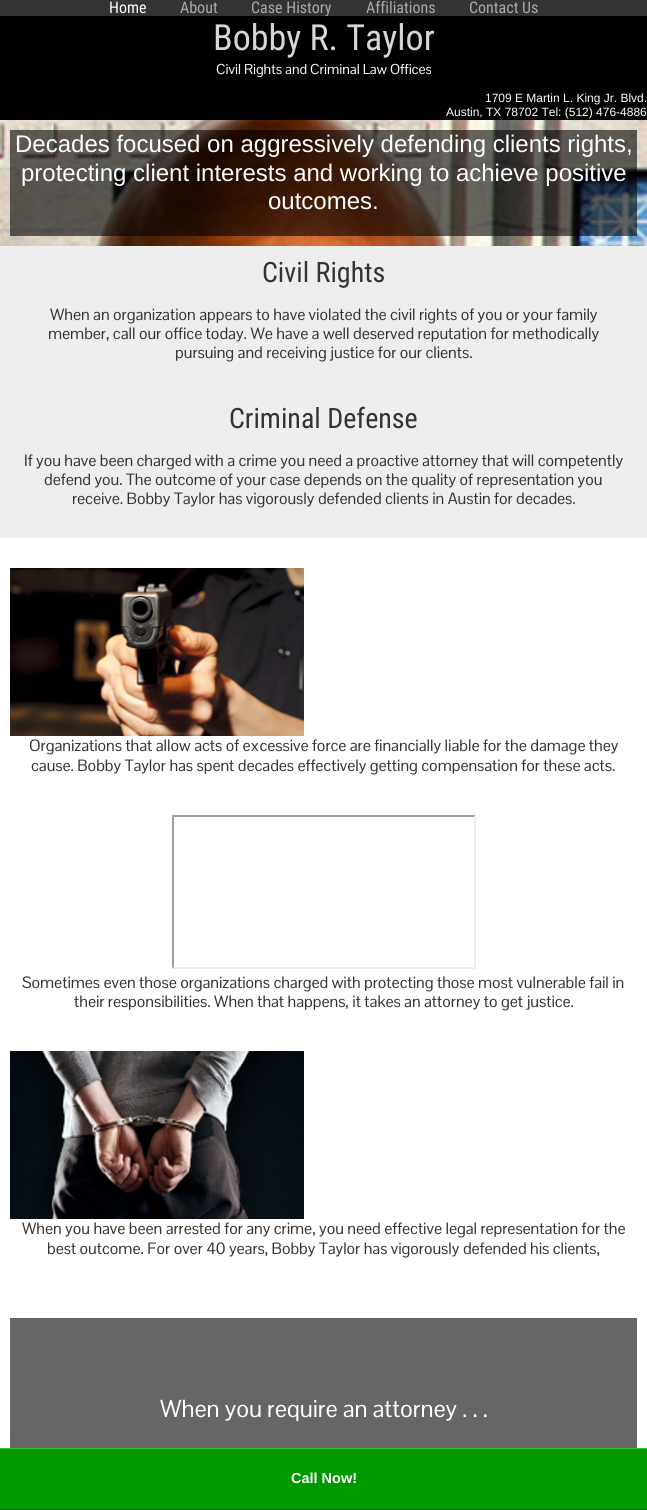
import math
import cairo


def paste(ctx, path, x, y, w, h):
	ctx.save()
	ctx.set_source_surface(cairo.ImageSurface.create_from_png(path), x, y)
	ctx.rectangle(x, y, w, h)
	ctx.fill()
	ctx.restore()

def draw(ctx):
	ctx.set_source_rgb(1, 1, 1)
	ctx.paint()
	paste(ctx, 'media/1.png', 0, 120, 647, 126)
	ctx.set_source_rgb(0.2, 0.2, 0.2)
	ctx.rectangle(0, 0, 647, 16)
	ctx.fill()
	ctx.select_font_face('Roboto Condensed')
	ctx.set_font_size(16)
	ctx.set_source_rgb(1, 1, 1)
	ctx.move_to(109, 13)
	ctx.show_text('Home')
	ctx.set_source_rgb(0.667, 0.667, 0.667)
	for x, y, s in [
		(180, 13, 'About'),
		(251, 13, 'Case History'),
		(366, 13, 'Affiliations'),
		(469, 13, 'Contact Us'),
	]:
		ctx.move_to(x, y)
		ctx.show_text(s)
	ctx.set_source_rgb(0, 0, 0)
	ctx.rectangle(0, 16, 647, 104)
	ctx.fill()
	ctx.set_font_size(36)
	ctx.set_source_rgb(0.839, 0.839, 0.839)
	ctx.move_to(213, 50)
	ctx.show_text('Bobby R. Taylor')
	ctx.select_font_face('Pontano Sans')
	ctx.set_font_size(14)
	ctx.set_source_rgb(1, 1, 1)
	ctx.move_to(216, 74)
	ctx.show_text('Civil Rights and Criminal Law Offices')
	ctx.select_font_face('Liberation Sans')
	ctx.set_font_size(12)
	ctx.move_to(485, 102)
	ctx.show_text('1709 E Martin L. King Jr. Blvd.')
	ctx.move_to(446, 116)
	ctx.show_text('Austin, TX 78702 Tel: (512) 476-4886')
	ctx.set_source_rgba(0, 0, 0, 0.6)
	ctx.rectangle(10, 130, 627, 106)
	ctx.fill()
	ctx.set_font_size(24)
	ctx.set_source_rgb(1, 1, 1)
	for x, y, s in [
		(15, 152, 'Decades focused on aggressively defending clients rights,'),
		(21, 181, 'protecting client interests and working to achieve positive'),
		(268, 209, 'outcomes.'),
	]:
		ctx.move_to(x, y)
		ctx.show_text(s)
	ctx.set_source_rgb(0.933, 0.933, 0.933)
	ctx.rectangle(0, 246, 647, 292)
	ctx.fill()
	ctx.select_font_face('Roboto Condensed')
	ctx.set_font_size(28)
	ctx.set_source_rgb(0.2, 0.2, 0.2)
	ctx.move_to(262, 282)
	ctx.show_text('Civil Rights')
	ctx.select_font_face('Pontano Sans')
	ctx.set_font_size(16)
	for x, y, s in [
		(50, 320, 'When an organization appears to have violated the civil rights of you or your family'),
		(48, 339, 'member, call our office today. We have a well deserved reputation for methodically'),
		(175, 358, 'pursuing and receiving justice for our clients.'),
	]:
		ctx.move_to(x, y)
		ctx.show_text(s)
	ctx.select_font_face('Roboto Condensed')
	ctx.set_font_size(28)
	ctx.move_to(229, 428)
	ctx.show_text('Criminal Defense')
	ctx.select_font_face('Pontano Sans')
	ctx.set_font_size(16)
	for x, y, s in [
		(24, 466, 'If you have been charged with a crime you need a proactive attorney that will competently'),
		(44, 485, 'defend you. The outcome of your case depends on the quality of representation you'),
		(72, 504, 'receive. Bobby Taylor has vigorously defended clients in Austin for decades.'),
	]:
		ctx.move_to(x, y)
		ctx.show_text(s)
	paste(ctx, 'media/2.png', 10, 568, 294, 168)
	ctx.move_to(29, 751)
	ctx.show_text('Organizations that allow acts of excessive force are financially liable for the damage they')
	ctx.move_to(31, 771)
	ctx.show_text('cause. Bobby Taylor has spent decades effectively getting compensation for these acts.')
	ctx.set_source_rgb(0.624, 0.624, 0.624)
	ctx.new_path()
	ctx.move_to(172, 815)
	ctx.line_to(476, 815)
	ctx.line_to(474, 817)
	ctx.line_to(174, 817)
	ctx.close_path()
	ctx.fill()
	ctx.set_source_rgb(0.933, 0.933, 0.933)
	ctx.new_path()
	ctx.move_to(476, 815)
	ctx.line_to(476, 969)
	ctx.line_to(474, 967)
	ctx.line_to(474, 817)
	ctx.close_path()
	ctx.fill()
	ctx.new_path()
	ctx.move_to(476, 969)
	ctx.line_to(172, 969)
	ctx.line_to(174, 967)
	ctx.line_to(474, 967)
	ctx.close_path()
	ctx.fill()
	ctx.set_source_rgb(0.624, 0.624, 0.624)
	ctx.new_path()
	ctx.move_to(172, 969)
	ctx.line_to(172, 815)
	ctx.line_to(174, 817)
	ctx.line_to(174, 967)
	ctx.close_path()
	ctx.fill()
	ctx.set_source_rgb(0.2, 0.2, 0.2)
	ctx.move_to(22, 988)
	ctx.show_text('Sometimes even those organizations charged with protecting those most vulnerable fail in')
	ctx.move_to(74, 1007)
	ctx.show_text('their responsibilities. When that happens, it takes an attorney to get justice.')
	paste(ctx, 'media/3.png', 10, 1051, 294, 168)
	ctx.move_to(22, 1234)
	ctx.show_text('When you have been arrested for any crime, you need effective legal representation for the')
	ctx.move_to(47, 1254)
	ctx.show_text('best outcome. For over 40 years, Bobby Taylor has vigorously defended his clients,')
	ctx.set_source_rgb(0.4, 0.4, 0.4)
	ctx.rectangle(10, 1318, 627, 130)
	ctx.fill()
	ctx.set_font_size(24)
	ctx.set_source_rgb(1, 1, 1)
	ctx.move_to(160, 1417)
	ctx.show_text('When you require an attorney . . .')
	ctx.set_source_rgb(0, 0.6, 0)
	ctx.rectangle(0, 1449, 647, 60)
	ctx.fill()
	ctx.set_source_rgb(0.176, 0.776, 0.176)
	ctx.rectangle(0, 1448, 647, 1)
	ctx.fill()
	ctx.set_source_rgb(0, 0.404, 0)
	ctx.rectangle(0, 1509, 647, 1)
	ctx.fill()
	ctx.select_font_face('Liberation Sans', cairo.FONT_SLANT_NORMAL, cairo.FONT_WEIGHT_BOLD)
	ctx.set_font_size(14.5)
	ctx.set_source_rgb(1, 1, 1)
	ctx.move_to(291, 1483)
	ctx.show_text('Call Now!')


surface = cairo.ImageSurface(cairo.FORMAT_RGB24, 647, 1510)
ctx = cairo.Context(surface)
options = cairo.FontOptions()
options.set_hint_metrics(cairo.HINT_METRICS_OFF)
options.set_hint_style(cairo.HINT_STYLE_NONE)
ctx.set_font_options(options)
ctx.set_miter_limit(4)
draw(ctx)
surface.write_to_png('image.png')
